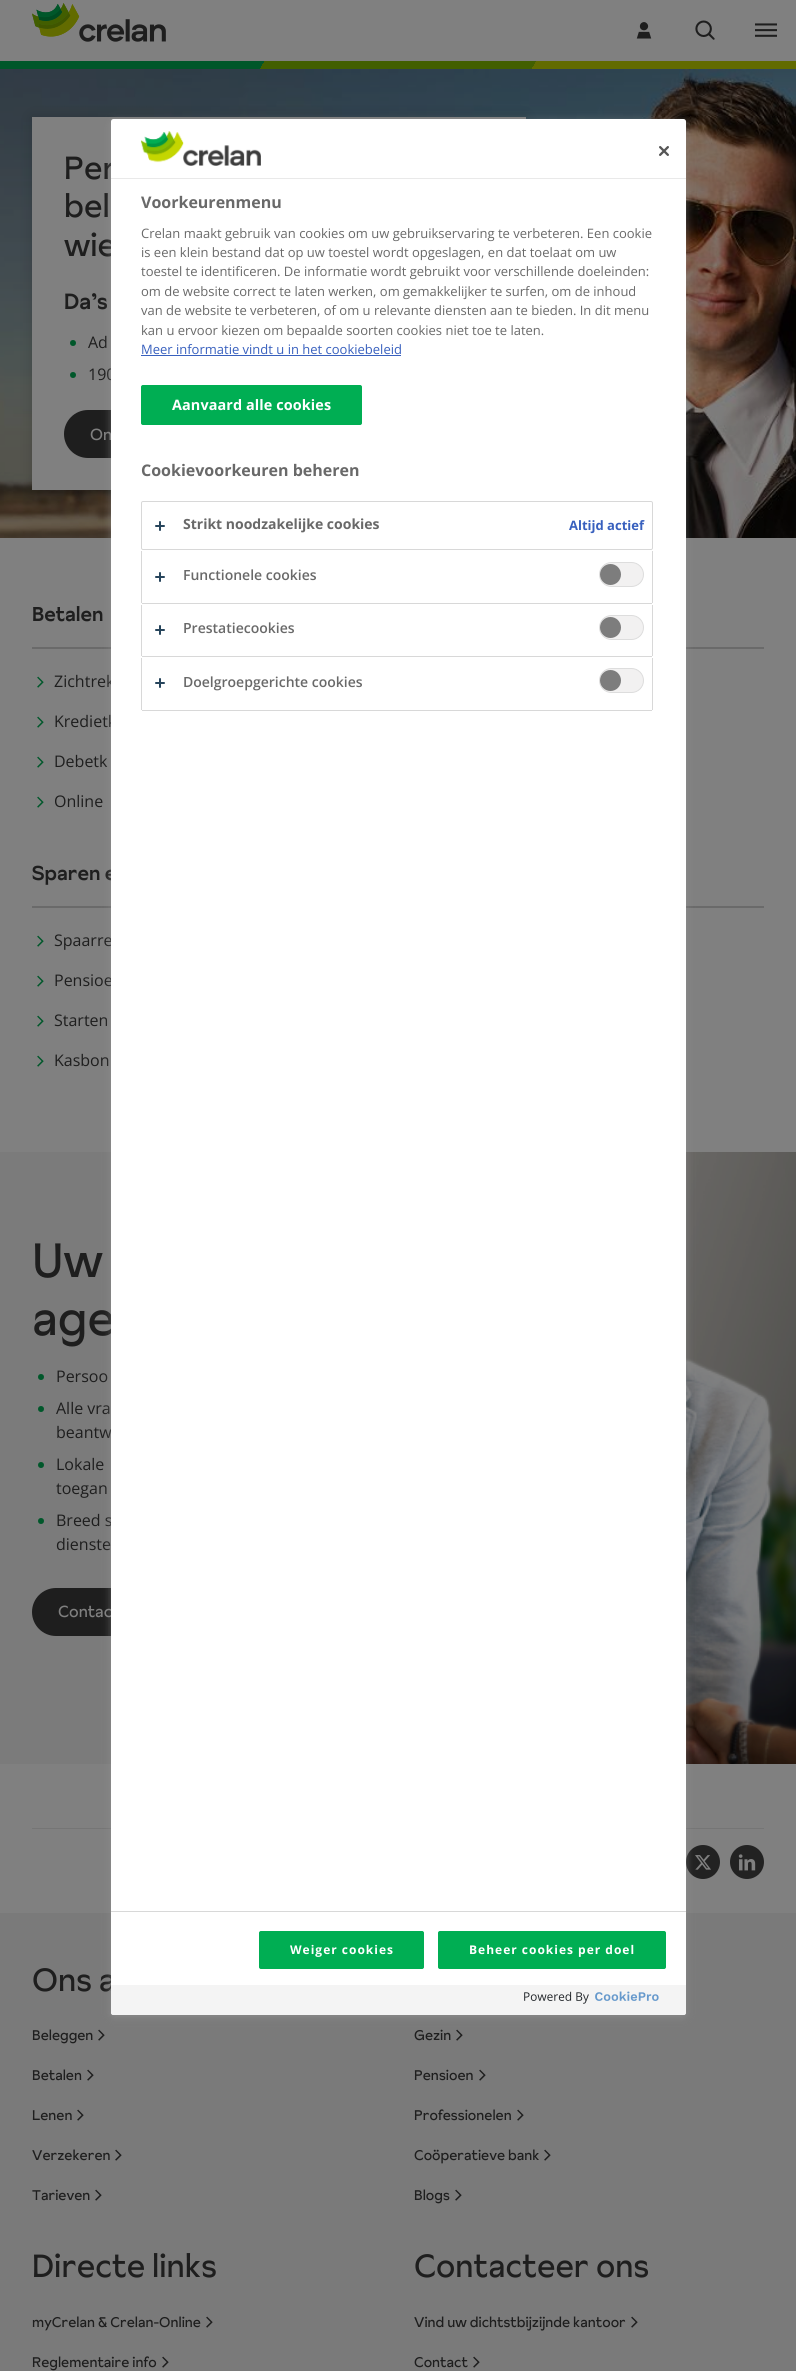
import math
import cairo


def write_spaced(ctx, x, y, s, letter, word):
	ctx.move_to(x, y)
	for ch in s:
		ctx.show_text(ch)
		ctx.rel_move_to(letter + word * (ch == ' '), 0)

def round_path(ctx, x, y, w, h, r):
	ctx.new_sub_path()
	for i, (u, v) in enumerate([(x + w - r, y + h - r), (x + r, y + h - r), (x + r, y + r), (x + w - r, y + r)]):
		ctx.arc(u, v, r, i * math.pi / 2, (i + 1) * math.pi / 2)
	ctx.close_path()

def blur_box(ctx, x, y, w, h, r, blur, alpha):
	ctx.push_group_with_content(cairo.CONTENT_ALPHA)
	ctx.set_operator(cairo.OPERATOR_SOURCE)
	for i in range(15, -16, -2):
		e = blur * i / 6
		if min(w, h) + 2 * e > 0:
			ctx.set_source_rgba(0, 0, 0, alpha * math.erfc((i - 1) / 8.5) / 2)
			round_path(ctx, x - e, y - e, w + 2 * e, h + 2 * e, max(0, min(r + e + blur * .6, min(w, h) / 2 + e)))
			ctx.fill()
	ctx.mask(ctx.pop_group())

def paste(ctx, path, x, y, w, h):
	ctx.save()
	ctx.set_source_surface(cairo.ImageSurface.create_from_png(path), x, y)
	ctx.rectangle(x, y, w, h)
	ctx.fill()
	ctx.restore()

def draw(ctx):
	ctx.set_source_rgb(0.502, 0.502, 0.502)
	ctx.paint()
	paste(ctx, 'media/1.png', 32, 3, 134, 39)
	paste(ctx, 'media/2.png', 636, 22, 16, 17)
	paste(ctx, 'media/3.png', 695, 20, 20, 20)
	paste(ctx, 'media/4.png', 755, 23, 22, 14)
	gradient = cairo.LinearGradient(98, -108, 698, 238)
	gradient.add_color_stop_rgba(0, 0, 0.341, 0.165, 1)
	gradient.add_color_stop_rgba(0.33, 0, 0.341, 0.165, 1)
	gradient.add_color_stop_rgba(0.33, 0.259, 0.373, 0, 1)
	gradient.add_color_stop_rgba(0.67, 0.259, 0.373, 0, 1)
	gradient.add_color_stop_rgba(0.67, 0.384, 0.42, 0, 1)
	gradient.add_color_stop_rgba(1, 0.384, 0.42, 0, 1)
	ctx.set_source(gradient)
	ctx.rectangle(0, 61, 796, 8)
	ctx.fill()
	paste(ctx, 'media/5.png', 0, 69, 796, 469)
	ctx.set_source_rgb(0, 0, 0)
	blur_box(ctx, 32, 117, 494, 373, 0, 7.5, 0.15)
	ctx.set_source_rgb(0.502, 0.502, 0.502)
	ctx.rectangle(32, 117, 494, 373)
	ctx.fill()
	ctx.select_font_face('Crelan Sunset')
	ctx.set_font_size(32)
	ctx.set_source_rgb(0.118, 0.118, 0.118)
	for x, y, s in [
		(64, 179, 'Per'),
		(64, 217, 'bel'),
		(64, 256, 'wie'),
	]:
		ctx.move_to(x, y)
		ctx.show_text(s)
	ctx.select_font_face('Crelan Sunset Medium')
	ctx.set_font_size(22)
	ctx.move_to(64, 309)
	ctx.show_text('Da’s')
	ctx.set_source_rgb(0, 0.341, 0.165)
	ctx.new_path()
	ctx.arc(73, 343, 3, 0, 2 * math.pi)
	ctx.fill()
	ctx.select_font_face('Open Sans')
	ctx.set_font_size(16)
	ctx.set_source_rgb(0.118, 0.118, 0.118)
	ctx.move_to(88, 348)
	ctx.show_text('Ad')
	ctx.set_source_rgb(0, 0.341, 0.165)
	ctx.new_path()
	ctx.arc(73, 375, 3, 0, 2 * math.pi)
	ctx.fill()
	ctx.set_source_rgb(0.118, 0.118, 0.118)
	ctx.move_to(88, 380)
	ctx.show_text('190')
	round_path(ctx, 64, 410, 273, 48, 24)
	ctx.fill()
	ctx.select_font_face('Crelan Sunset')
	ctx.set_source_rgb(0.502, 0.502, 0.502)
	ctx.move_to(90, 440)
	ctx.show_text('On')
	ctx.select_font_face('Crelan Sunset Medium')
	ctx.set_font_size(20)
	ctx.set_source_rgb(0.118, 0.118, 0.118)
	ctx.move_to(32, 621)
	ctx.show_text('Betalen')
	ctx.set_source_rgb(0.416, 0.416, 0.416)
	ctx.rectangle(32, 647, 79, 2)
	ctx.fill()
	paste(ctx, 'media/6.png', 37, 676, 7, 12)
	ctx.select_font_face('Open Sans')
	ctx.set_font_size(16)
	ctx.set_source_rgb(0.118, 0.118, 0.118)
	ctx.move_to(54, 687)
	ctx.show_text('Zichtrek')
	paste(ctx, 'media/6.png', 37, 716, 7, 12)
	ctx.move_to(54, 727)
	ctx.show_text('Kredietk')
	paste(ctx, 'media/6.png', 37, 756, 7, 12)
	ctx.move_to(54, 767)
	ctx.show_text('Debetk')
	paste(ctx, 'media/6.png', 37, 796, 7, 12)
	ctx.move_to(54, 807)
	ctx.show_text('Online')
	ctx.set_source_rgb(0.416, 0.416, 0.416)
	ctx.rectangle(686, 647, 78, 2)
	ctx.fill()
	ctx.select_font_face('Crelan Sunset Medium')
	ctx.set_font_size(20)
	ctx.set_source_rgb(0.118, 0.118, 0.118)
	ctx.move_to(32, 880)
	ctx.show_text('Sparen e')
	ctx.set_source_rgb(0.416, 0.416, 0.416)
	ctx.rectangle(32, 906, 79, 2)
	ctx.fill()
	paste(ctx, 'media/6.png', 37, 935, 7, 12)
	ctx.select_font_face('Open Sans')
	ctx.set_font_size(16)
	ctx.set_source_rgb(0.118, 0.118, 0.118)
	ctx.move_to(54, 946)
	ctx.show_text('Spaarre')
	paste(ctx, 'media/6.png', 37, 975, 7, 12)
	ctx.move_to(54, 986)
	ctx.show_text('Pensioe')
	paste(ctx, 'media/6.png', 37, 1015, 7, 12)
	ctx.move_to(54, 1026)
	ctx.show_text('Starten')
	paste(ctx, 'media/6.png', 37, 1055, 7, 12)
	ctx.move_to(54, 1066)
	ctx.show_text('Kasbon')
	ctx.set_source_rgb(0.416, 0.416, 0.416)
	ctx.rectangle(686, 906, 78, 2)
	ctx.fill()
	ctx.set_source_rgb(0.482, 0.482, 0.482)
	ctx.rectangle(0, 1152, 111, 612)
	ctx.fill()
	ctx.select_font_face('Crelan Sunset')
	ctx.set_font_size(48)
	ctx.set_source_rgb(0.118, 0.118, 0.118)
	ctx.move_to(32, 1277)
	ctx.show_text('Uw')
	ctx.move_to(32, 1335)
	ctx.show_text('age')
	ctx.set_source_rgb(0, 0.341, 0.165)
	ctx.new_path()
	ctx.arc(41, 1377, 3, 0, 2 * math.pi)
	ctx.fill()
	ctx.select_font_face('Open Sans')
	ctx.set_font_size(16)
	ctx.set_source_rgb(0.118, 0.118, 0.118)
	ctx.move_to(56, 1382)
	ctx.show_text('Persoo')
	ctx.set_source_rgb(0, 0.341, 0.165)
	ctx.new_path()
	ctx.arc(41, 1409, 3, 0, 2 * math.pi)
	ctx.fill()
	ctx.set_source_rgb(0.118, 0.118, 0.118)
	ctx.move_to(56, 1414)
	ctx.show_text('Alle vra')
	ctx.move_to(56, 1438)
	ctx.show_text('beantw')
	ctx.set_source_rgb(0, 0.341, 0.165)
	ctx.new_path()
	ctx.arc(41, 1465, 3, 0, 2 * math.pi)
	ctx.fill()
	ctx.set_source_rgb(0.118, 0.118, 0.118)
	ctx.move_to(56, 1470)
	ctx.show_text('Lokale')
	ctx.move_to(56, 1494)
	ctx.show_text('toegan')
	ctx.set_source_rgb(0, 0.341, 0.165)
	ctx.new_path()
	ctx.arc(41, 1521, 3, 0, 2 * math.pi)
	ctx.fill()
	ctx.set_source_rgb(0.118, 0.118, 0.118)
	ctx.move_to(56, 1526)
	ctx.show_text('Breed s')
	ctx.move_to(56, 1550)
	ctx.show_text('dienste')
	round_path(ctx, 32, 1588, 269, 48, 24)
	ctx.fill()
	ctx.select_font_face('Crelan Sunset')
	ctx.set_source_rgb(0.502, 0.502, 0.502)
	ctx.move_to(58, 1617)
	ctx.show_text('Contac')
	paste(ctx, 'media/7.png', 686, 1152, 110, 612)
	ctx.set_source_rgb(0.459, 0.459, 0.459)
	ctx.rectangle(32, 1828, 732, 1)
	ctx.fill()
	ctx.set_source_rgb(0.133, 0.133, 0.133)
	ctx.arc(703, 1862, 17, 0, 2 * math.pi)
	ctx.fill()
	paste(ctx, 'media/8.png', 695, 1855, 16, 15)
	ctx.arc(747, 1862, 17, 0, 2 * math.pi)
	ctx.fill()
	paste(ctx, 'media/9.png', 738, 1854, 18, 17)
	ctx.set_source_rgb(0.478, 0.478, 0.478)
	ctx.rectangle(0, 1913, 796, 458)
	ctx.fill()
	ctx.set_font_size(32)
	ctx.set_source_rgb(0.118, 0.118, 0.118)
	ctx.move_to(32, 1991)
	ctx.show_text('Ons a')
	ctx.set_font_size(14)
	ctx.move_to(32, 2040)
	ctx.show_text('Beleggen')
	paste(ctx, 'media/10.png', 98, 2029, 7, 12)
	ctx.move_to(32, 2080)
	ctx.show_text('Betalen')
	paste(ctx, 'media/10.png', 87, 2069, 7, 12)
	ctx.move_to(32, 2120)
	ctx.show_text('Lenen')
	paste(ctx, 'media/10.png', 77, 2109, 7, 12)
	ctx.move_to(32, 2160)
	ctx.show_text('Verzekeren')
	paste(ctx, 'media/10.png', 115, 2149, 7, 12)
	ctx.move_to(32, 2200)
	ctx.show_text('Tarieven')
	paste(ctx, 'media/10.png', 95, 2189, 7, 12)
	ctx.move_to(414, 2040)
	ctx.show_text('Gezin')
	paste(ctx, 'media/10.png', 456, 2029, 7, 12)
	ctx.move_to(414, 2080)
	ctx.show_text('Pensioen')
	paste(ctx, 'media/10.png', 479, 2069, 7, 12)
	ctx.move_to(414, 2120)
	ctx.show_text('Professionelen')
	paste(ctx, 'media/10.png', 517, 2109, 7, 12)
	ctx.move_to(414, 2160)
	ctx.show_text('Coöperatieve bank')
	paste(ctx, 'media/10.png', 544, 2149, 7, 12)
	ctx.move_to(414, 2200)
	ctx.show_text('Blogs')
	paste(ctx, 'media/10.png', 455, 2189, 7, 12)
	ctx.set_font_size(32)
	ctx.move_to(32, 2277)
	ctx.show_text('Directe links')
	ctx.set_font_size(14)
	ctx.move_to(32, 2327)
	ctx.show_text('myCrelan & Crelan-Online')
	paste(ctx, 'media/10.png', 206, 2316, 7, 12)
	ctx.move_to(32, 2367)
	ctx.show_text('Reglementaire info')
	paste(ctx, 'media/10.png', 162, 2356, 7, 12)
	ctx.set_font_size(32)
	ctx.move_to(414, 2277)
	ctx.show_text('Contacteer ons')
	ctx.set_font_size(14)
	ctx.move_to(414, 2327)
	ctx.show_text('Vind uw dichtstbijzijnde kantoor')
	paste(ctx, 'media/10.png', 631, 2316, 7, 12)
	ctx.move_to(414, 2367)
	ctx.show_text('Contact')
	paste(ctx, 'media/10.png', 473, 2356, 7, 12)
	ctx.set_source_rgb(0.6, 0.6, 0.6)
	blur_box(ctx, 114, 124, 569, 1890, 0, 5, 1)
	ctx.set_source_rgb(1, 1, 1)
	round_path(ctx, 111, 119, 575, 1896, 2.5)
	ctx.fill()
	ctx.set_source_rgb(0.914, 0.914, 0.914)
	ctx.rectangle(111, 178, 575, 1)
	ctx.fill()
	paste(ctx, 'media/11.png', 141, 131, 120, 35)
	paste(ctx, 'media/12.png', 659, 146, 10, 10)
	ctx.select_font_face('Open Sans', cairo.FONT_SLANT_NORMAL, cairo.FONT_WEIGHT_BOLD)
	ctx.set_font_size(16)
	ctx.set_source_rgb(0.412, 0.412, 0.412)
	ctx.move_to(141, 208)
	ctx.show_text('Voorkeurenmenu')
	ctx.select_font_face('Open Sans')
	ctx.set_font_size(13)
	for x, y, s in [
		(141, 238, 'Crelan maakt gebruik van cookies om uw gebruikservaring te verbeteren. Een cookie'),
		(141, 257, 'is een klein bestand dat op uw toestel wordt opgeslagen, en dat toelaat om uw'),
		(141, 276, 'toestel te identificeren. De informatie wordt gebruikt voor verschillende doeleinden:'),
		(141, 296, 'om de website correct te laten werken, om gemakkelijker te surfen, om de inhoud'),
		(141, 315, 'van de website te verbeteren, of om u relevante diensten aan te bieden. In dit menu'),
		(141, 335, 'kan u ervoor kiezen om bepaalde soorten cookies niet toe te laten.'),
	]:
		ctx.move_to(x, y)
		ctx.show_text(s)
	ctx.set_source_rgb(0.22, 0.376, 0.745)
	ctx.move_to(141, 354)
	ctx.show_text('Meer informatie vindt u in het cookiebeleid')
	ctx.rectangle(141, 355, 260, 1)
	ctx.fill()
	ctx.set_source_rgb(0, 0.682, 0.325)
	round_path(ctx, 141.5, 385.5, 220, 39, 1.5)
	ctx.fill_preserve()
	ctx.set_line_width(1)
	ctx.stroke()
	ctx.select_font_face('Open Sans', cairo.FONT_SLANT_NORMAL, cairo.FONT_WEIGHT_BOLD)
	ctx.set_font_size(14.4)
	ctx.set_source_rgb(1, 1, 1)
	write_spaced(ctx, 172, 410, 'Aanvaard alle cookies', 0.1, 0)
	ctx.set_font_size(16)
	ctx.set_source_rgb(0.412, 0.412, 0.412)
	ctx.move_to(141, 476)
	ctx.show_text('Cookievoorkeuren beheren')
	round_path(ctx, 141.5, 501.5, 511, 48, 1.5)
	ctx.set_source_rgb(0.847, 0.847, 0.847)
	ctx.stroke()
	ctx.set_source_rgb(0.153, 0.271, 0.361)
	round_path(ctx, 159, 521, 2, 10, 1)
	ctx.fill()
	round_path(ctx, 155, 525, 10, 2, 1)
	ctx.fill()
	ctx.set_font_size(14)
	ctx.set_source_rgb(0.412, 0.412, 0.412)
	ctx.move_to(183, 529)
	ctx.show_text('Strikt noodzakelijke cookies')
	ctx.set_font_size(13)
	ctx.set_source_rgb(0.22, 0.376, 0.745)
	ctx.move_to(569, 530)
	ctx.show_text('Altijd actief')
	ctx.set_source_rgb(0.847, 0.847, 0.847)
	ctx.rectangle(652, 551, 1, 52)
	ctx.rectangle(142, 603, 510, 1)
	ctx.rectangle(141, 551, 1, 52)
	ctx.fill()
	ctx.set_source_rgb(0.153, 0.271, 0.361)
	round_path(ctx, 159, 572, 2, 10, 1)
	ctx.fill()
	round_path(ctx, 155, 576, 10, 2, 1)
	ctx.fill()
	ctx.select_font_face('Open Sans SemiBold')
	ctx.set_font_size(14)
	ctx.set_source_rgb(0.412, 0.412, 0.412)
	ctx.move_to(183, 580)
	ctx.show_text('Functionele cookies')
	ctx.set_source_rgb(0.949, 0.945, 0.945)
	round_path(ctx, 599.5, 562.5, 44, 24, 12)
	ctx.fill_preserve()
	ctx.set_source_rgb(0.867, 0.867, 0.867)
	ctx.stroke()
	ctx.set_source_rgb(0.49, 0.49, 0.49)
	ctx.arc(610.5, 574.5, 10.5, 0, 2 * math.pi)
	ctx.fill()
	ctx.set_source_rgb(0.847, 0.847, 0.847)
	ctx.rectangle(652, 605, 1, 51)
	ctx.rectangle(142, 656, 510, 1)
	ctx.rectangle(141, 605, 1, 51)
	ctx.fill()
	ctx.set_source_rgb(0.153, 0.271, 0.361)
	round_path(ctx, 159, 625, 2, 10, 1)
	ctx.fill()
	round_path(ctx, 155, 629, 10, 2, 1)
	ctx.fill()
	ctx.set_source_rgb(0.412, 0.412, 0.412)
	ctx.move_to(183, 633)
	ctx.show_text('Prestatiecookies')
	ctx.set_source_rgb(0.949, 0.945, 0.945)
	round_path(ctx, 599.5, 615.5, 44, 24, 12)
	ctx.fill_preserve()
	ctx.set_source_rgb(0.867, 0.867, 0.867)
	ctx.stroke()
	ctx.set_source_rgb(0.49, 0.49, 0.49)
	ctx.arc(610.5, 627.5, 10.5, 0, 2 * math.pi)
	ctx.fill()
	ctx.set_source_rgb(0.847, 0.847, 0.847)
	ctx.rectangle(652, 658, 1, 52)
	ctx.rectangle(142, 710, 510, 1)
	ctx.rectangle(141, 658, 1, 52)
	ctx.fill()
	ctx.set_source_rgb(0.153, 0.271, 0.361)
	round_path(ctx, 159, 678, 2, 10, 1)
	ctx.fill()
	round_path(ctx, 155, 682, 10, 2, 1)
	ctx.fill()
	ctx.set_source_rgb(0.412, 0.412, 0.412)
	ctx.move_to(183, 687)
	ctx.show_text('Doelgroepgerichte cookies')
	ctx.set_source_rgb(0.949, 0.945, 0.945)
	round_path(ctx, 599.5, 668.5, 44, 24, 12)
	ctx.fill_preserve()
	ctx.set_source_rgb(0.867, 0.867, 0.867)
	ctx.stroke()
	ctx.set_source_rgb(0.49, 0.49, 0.49)
	ctx.arc(610.5, 680.5, 10.5, 0, 2 * math.pi)
	ctx.fill()
	ctx.set_source_rgb(0.847, 0.847, 0.847)
	ctx.rectangle(111, 1911, 575, 1)
	ctx.fill()
	ctx.set_source_rgb(0, 0.682, 0.325)
	round_path(ctx, 259.5, 1931.5, 164, 37, 1.5)
	ctx.fill_preserve()
	ctx.stroke()
	ctx.select_font_face('Open Sans', cairo.FONT_SLANT_NORMAL, cairo.FONT_WEIGHT_BOLD)
	ctx.set_font_size(12)
	ctx.set_source_rgb(1, 1, 1)
	write_spaced(ctx, 290, 1954, 'Weiger cookies', 1, 0)
	ctx.set_source_rgb(0, 0.682, 0.325)
	round_path(ctx, 438.5, 1931.5, 227, 37, 1.5)
	ctx.fill_preserve()
	ctx.stroke()
	ctx.set_source_rgb(1, 1, 1)
	write_spaced(ctx, 469, 1954, 'Beheer cookies per doel', 1, 0)
	ctx.set_source_rgb(0.957, 0.957, 0.957)
	ctx.new_path()
	ctx.move_to(111, 1985)
	ctx.line_to(686, 1985)
	ctx.line_to(686, 2012.5)
	ctx.curve_to(686, 2014, 685, 2015, 683.5, 2015)
	ctx.line_to(113.5, 2015)
	ctx.curve_to(112, 2015, 111, 2014, 111, 2012.5)
	ctx.close_path()
	ctx.fill()
	paste(ctx, 'media/13.png', 524, 1991, 135, 13)


surface = cairo.ImageSurface(cairo.FORMAT_RGB24, 796, 2371)
ctx = cairo.Context(surface)
options = cairo.FontOptions()
options.set_hint_metrics(cairo.HINT_METRICS_OFF)
options.set_hint_style(cairo.HINT_STYLE_NONE)
ctx.set_font_options(options)
ctx.set_miter_limit(4)
draw(ctx)
surface.write_to_png('image.png')
